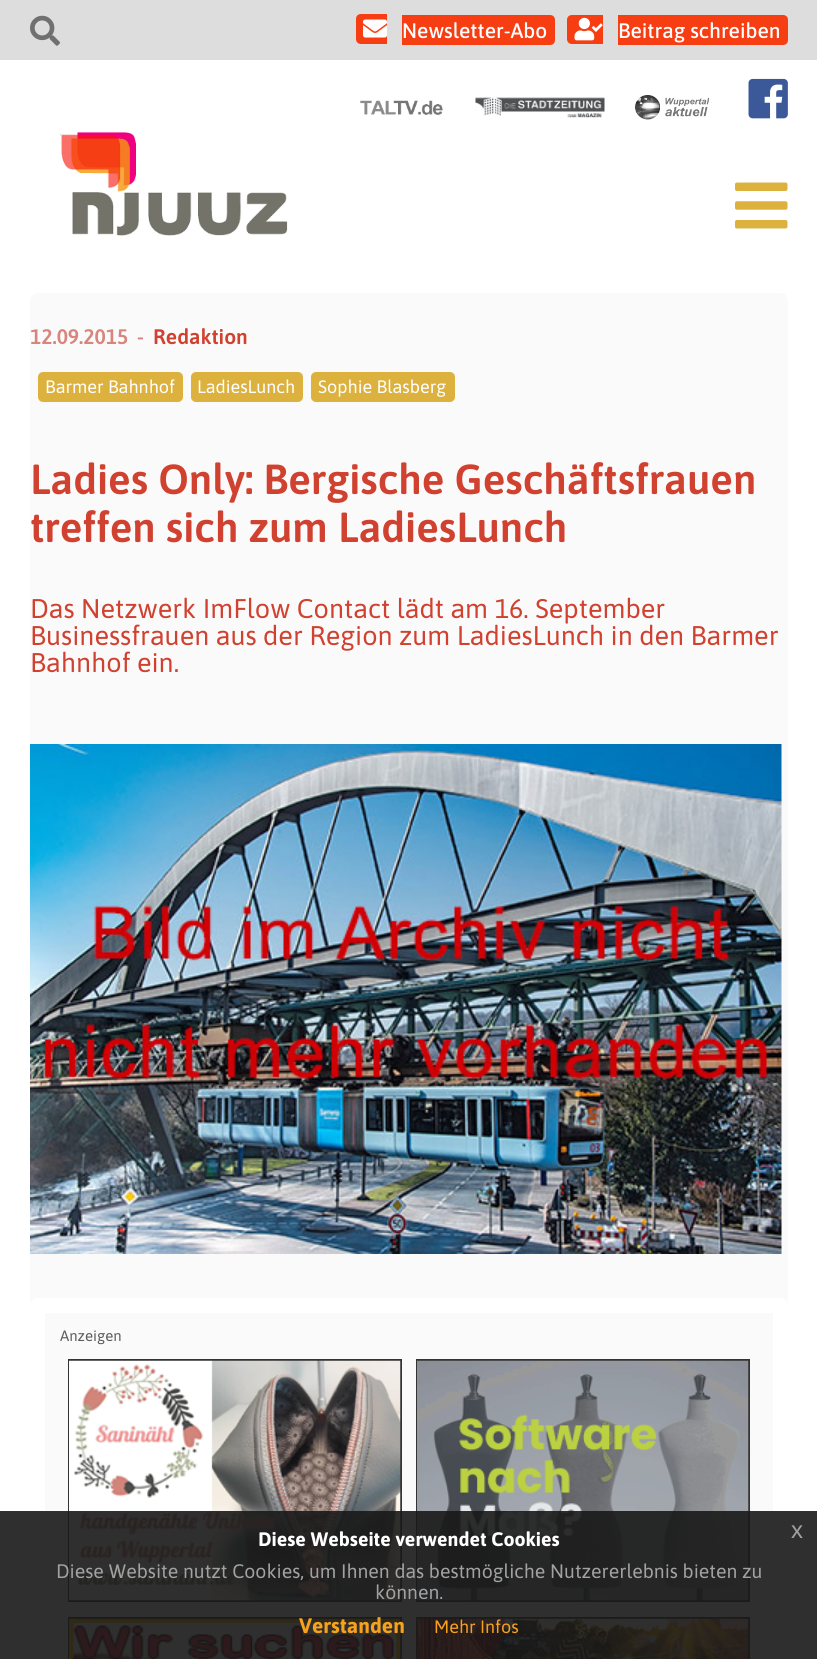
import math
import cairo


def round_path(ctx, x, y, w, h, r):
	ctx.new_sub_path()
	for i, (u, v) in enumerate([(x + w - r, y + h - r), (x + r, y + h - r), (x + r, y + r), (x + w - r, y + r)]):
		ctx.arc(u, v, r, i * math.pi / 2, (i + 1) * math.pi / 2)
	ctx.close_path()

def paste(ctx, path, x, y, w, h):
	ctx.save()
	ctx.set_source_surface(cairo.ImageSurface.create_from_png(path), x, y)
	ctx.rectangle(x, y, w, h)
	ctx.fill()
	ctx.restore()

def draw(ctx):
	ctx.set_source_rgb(1, 1, 1)
	ctx.paint()
	ctx.set_source_rgb(0.867, 0.867, 0.867)
	ctx.rectangle(0, 0, 817, 60)
	ctx.fill()
	paste(ctx, 'media/1.png', 30, 15, 30, 31)
	ctx.set_source_rgb(0.965, 0.243, 0.078)
	ctx.new_path()
	ctx.move_to(361, 14)
	ctx.line_to(387, 14)
	ctx.line_to(387, 44)
	ctx.line_to(361, 44)
	ctx.curve_to(358, 44, 356, 42, 356, 39)
	ctx.line_to(356, 19)
	ctx.curve_to(356, 16, 358, 14, 361, 14)
	ctx.close_path()
	ctx.fill()
	paste(ctx, 'media/2.png', 363, 19, 24, 19)
	ctx.new_path()
	ctx.move_to(402, 15)
	ctx.line_to(550, 15)
	ctx.curve_to(553, 15, 555, 17, 555, 20)
	ctx.line_to(555, 40)
	ctx.curve_to(555, 43, 553, 45, 550, 45)
	ctx.line_to(402, 45)
	ctx.close_path()
	ctx.fill()
	ctx.select_font_face('Asap Medium')
	ctx.set_font_size(21)
	ctx.set_source_rgb(1, 1, 1)
	ctx.move_to(402, 38)
	ctx.show_text('Newsletter-Abo')
	ctx.set_source_rgb(0.965, 0.243, 0.078)
	ctx.new_path()
	ctx.move_to(572, 15)
	ctx.line_to(603, 15)
	ctx.line_to(603, 44)
	ctx.line_to(572, 44)
	ctx.curve_to(569, 44, 567, 42, 567, 39)
	ctx.line_to(567, 20)
	ctx.curve_to(567, 17, 569, 15, 572, 15)
	ctx.close_path()
	ctx.fill()
	paste(ctx, 'media/3.png', 574, 17, 29, 24)
	ctx.new_path()
	ctx.move_to(618, 15)
	ctx.line_to(783, 15)
	ctx.curve_to(786, 15, 788, 17, 788, 20)
	ctx.line_to(788, 40)
	ctx.curve_to(788, 43, 786, 45, 783, 45)
	ctx.line_to(618, 45)
	ctx.close_path()
	ctx.fill()
	ctx.set_source_rgb(1, 1, 1)
	ctx.move_to(618, 38)
	ctx.show_text('Beitrag schreiben')
	paste(ctx, 'media/4.png', 360, 100, 83, 15)
	paste(ctx, 'media/5.png', 475, 97, 130, 21)
	paste(ctx, 'media/6.png', 635, 95, 75, 25)
	paste(ctx, 'media/7.png', 748, 78, 40, 41)
	paste(ctx, 'media/8.png', 60, 132, 228, 104)
	paste(ctx, 'media/9.png', 735, 182, 53, 47)
	ctx.set_source_rgb(0.98, 0.98, 0.98)
	round_path(ctx, 30, 293, 758, 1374, 8)
	ctx.fill()
	ctx.select_font_face('Asap SemiBold')
	ctx.set_source_rgb(0.847, 0.522, 0.494)
	ctx.move_to(30, 344)
	ctx.show_text('12.09.2015')
	ctx.move_to(137, 344)
	ctx.show_text('-')
	ctx.set_source_rgb(0.816, 0.255, 0.188)
	ctx.move_to(153, 344)
	ctx.show_text('Redaktion')
	ctx.set_source_rgb(0.863, 0.694, 0.243)
	round_path(ctx, 38, 372, 145, 30, 5)
	ctx.fill()
	ctx.select_font_face('Asap')
	ctx.set_font_size(18)
	ctx.set_source_rgb(1, 1, 1)
	ctx.move_to(45, 393)
	ctx.show_text('Barmer Bahnhof')
	ctx.set_source_rgb(0.863, 0.694, 0.243)
	round_path(ctx, 191, 372, 112, 30, 5)
	ctx.fill()
	ctx.set_source_rgb(1, 1, 1)
	ctx.move_to(197, 393)
	ctx.show_text('LadiesLunch')
	ctx.set_source_rgb(0.863, 0.694, 0.243)
	round_path(ctx, 311, 372, 144, 30, 5)
	ctx.fill()
	ctx.set_source_rgb(1, 1, 1)
	ctx.move_to(318, 393)
	ctx.show_text('Sophie Blasberg')
	ctx.select_font_face('Asap SemiBold')
	ctx.set_font_size(42)
	ctx.set_source_rgb(0.816, 0.255, 0.188)
	ctx.move_to(30, 494)
	ctx.show_text('Ladies Only: Bergische Geschäftsfrauen')
	ctx.move_to(30, 542)
	ctx.show_text('treffen sich zum LadiesLunch')
	ctx.select_font_face('Asap')
	ctx.set_font_size(27)
	for x, y, s in [
		(30, 618, 'Das Netzwerk ImFlow Contact lädt am 16. September'),
		(30, 645, 'Businessfrauen aus der Region zum LadiesLunch in den Barmer'),
		(30, 672, 'Bahnhof ein.'),
	]:
		ctx.move_to(x, y)
		ctx.show_text(s)
	paste(ctx, 'media/10.png', 30, 744, 752, 510)
	round_path(ctx, 37.5, 1305.5, 743, 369, 0.5)
	ctx.set_source_rgb(1, 1, 1)
	ctx.set_line_width(15)
	ctx.stroke()
	ctx.set_font_size(15)
	ctx.set_source_rgb(0.361, 0.361, 0.361)
	ctx.move_to(60, 1341)
	ctx.show_text('Anzeigen')
	ctx.rectangle(69, 1360, 332, 241)
	ctx.set_source_rgb(0.2, 0.2, 0.2)
	ctx.set_line_width(2)
	ctx.stroke()
	paste(ctx, 'media/11.png', 69, 1360, 332, 241)
	ctx.rectangle(417, 1360, 332, 241)
	ctx.stroke()
	paste(ctx, 'media/12.png', 417, 1360, 332, 241)
	ctx.rectangle(69, 1618, 332, 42)
	ctx.stroke()
	paste(ctx, 'media/13.png', 69, 1618, 332, 41)
	ctx.rectangle(417, 1618, 332, 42)
	ctx.stroke()
	paste(ctx, 'media/14.png', 417, 1618, 332, 41)
	ctx.set_source_rgba(0.098, 0.098, 0.098, 0.9)
	ctx.rectangle(0, 1511, 817, 148)
	ctx.fill()
	ctx.select_font_face('Asap', cairo.FONT_SLANT_NORMAL, cairo.FONT_WEIGHT_BOLD)
	ctx.set_font_size(19.5)
	ctx.set_source_rgb(1, 1, 1)
	ctx.move_to(258, 1546)
	ctx.show_text('Diese Webseite verwendet Cookies')
	ctx.select_font_face('Liberation Sans')
	ctx.set_font_size(24)
	ctx.set_source_rgb(0.635, 0.635, 0.635)
	ctx.move_to(791, 1538)
	ctx.show_text('x')
	ctx.select_font_face('Asap')
	ctx.set_font_size(19.5)
	ctx.move_to(56, 1578)
	ctx.show_text('Diese Website nutzt Cookies, um Ihnen das bestmögliche Nutzererlebnis bieten zu')
	ctx.move_to(375, 1599)
	ctx.show_text('können.')
	ctx.select_font_face('Asap', cairo.FONT_SLANT_NORMAL, cairo.FONT_WEIGHT_BOLD)
	ctx.set_font_size(21)
	ctx.set_source_rgb(0.965, 0.635, 0.114)
	ctx.move_to(299, 1633)
	ctx.show_text('Verstanden')
	ctx.select_font_face('Asap')
	ctx.set_font_size(18)
	ctx.move_to(434, 1633)
	ctx.show_text('Mehr Infos')


surface = cairo.ImageSurface(cairo.FORMAT_RGB24, 817, 1659)
ctx = cairo.Context(surface)
options = cairo.FontOptions()
options.set_hint_metrics(cairo.HINT_METRICS_OFF)
options.set_hint_style(cairo.HINT_STYLE_NONE)
ctx.set_font_options(options)
ctx.set_miter_limit(4)
draw(ctx)
surface.write_to_png('image.png')
